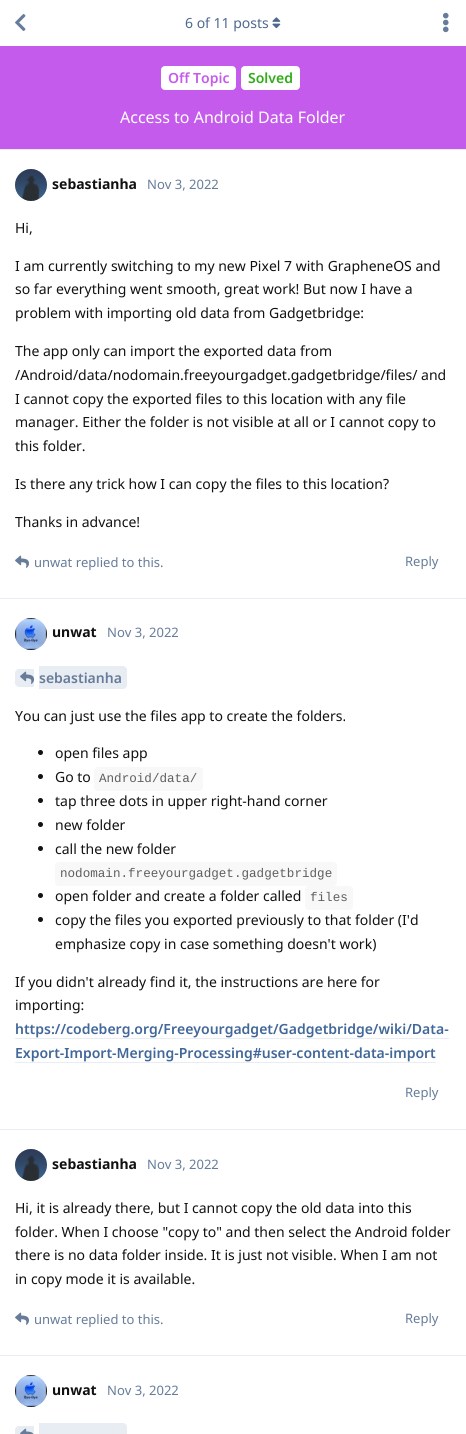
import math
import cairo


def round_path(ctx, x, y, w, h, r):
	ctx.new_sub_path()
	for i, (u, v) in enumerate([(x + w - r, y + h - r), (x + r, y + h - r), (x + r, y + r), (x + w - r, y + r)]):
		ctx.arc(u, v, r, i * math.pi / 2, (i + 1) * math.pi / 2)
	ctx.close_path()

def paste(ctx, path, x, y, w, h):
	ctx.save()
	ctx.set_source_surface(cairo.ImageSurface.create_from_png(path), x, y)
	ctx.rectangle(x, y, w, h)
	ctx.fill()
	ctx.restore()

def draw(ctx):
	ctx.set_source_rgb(1, 1, 1)
	ctx.paint()
	paste(ctx, 'media/1.png', 15, 14, 11, 17)
	ctx.set_source_rgb(0.91, 0.925, 0.953)
	ctx.rectangle(0, 149, 466, 1)
	ctx.fill()
	ctx.select_font_face('Noto Sans')
	ctx.set_font_size(14)
	ctx.set_source_rgb(0.302, 0.412, 0.557)
	ctx.move_to(185, 28)
	ctx.show_text('6 of 11 posts')
	paste(ctx, 'media/2.png', 272, 17, 9, 12)
	paste(ctx, 'media/3.png', 443, 12, 6, 21)
	ctx.set_source_rgb(0.91, 0.925, 0.953)
	ctx.rectangle(0, 598, 466, 1)
	ctx.fill()
	ctx.arc(31, 185, 16, 0, 2 * math.pi)
	ctx.fill()
	paste(ctx, 'media/4.png', 15, 169, 32, 32)
	ctx.select_font_face('Noto Sans', cairo.FONT_SLANT_NORMAL, cairo.FONT_WEIGHT_BOLD)
	ctx.set_source_rgb(0.067, 0.067, 0.067)
	ctx.move_to(52, 189)
	ctx.show_text('sebastianha')
	ctx.select_font_face('Noto Sans')
	ctx.set_font_size(13)
	ctx.set_source_rgb(0.4, 0.486, 0.6)
	ctx.move_to(147, 189)
	ctx.show_text('Nov 3, 2022')
	ctx.set_font_size(14)
	ctx.set_source_rgb(0.067, 0.067, 0.067)
	for x, y, s in [
		(15, 233, 'Hi,'),
		(15, 271, 'I am currently switching to my new Pixel 7 with GrapheneOS and'),
		(15, 294, 'so far everything went smooth, great work! But now I have a'),
		(15, 318, 'problem with importing old data from Gadgetbridge:'),
		(15, 356, 'The app only can import the exported data from'),
		(15, 380, '/Android/data/nodomain.freeyourgadget.gadgetbridge/files/ and'),
		(15, 404, 'I cannot copy the exported files to this location with any file'),
		(15, 427, 'manager. Either the folder is not visible at all or I cannot copy to'),
		(15, 451, 'this folder.'),
		(15, 489, 'Is there any trick how I can copy the files to this location?'),
		(15, 527, 'Thanks in advance!'),
	]:
		ctx.move_to(x, y)
		ctx.show_text(s)
	paste(ctx, 'media/5.png', 15, 555, 14, 13)
	ctx.set_font_size(13)
	ctx.set_source_rgb(0.4, 0.486, 0.6)
	ctx.move_to(34, 567)
	ctx.show_text('unwat replied to this.')
	ctx.move_to(405, 566)
	ctx.show_text('Reply')
	ctx.set_source_rgb(0.91, 0.925, 0.953)
	ctx.rectangle(0, 1129, 466, 1)
	ctx.fill()
	ctx.arc(31, 634, 16, 0, 2 * math.pi)
	ctx.fill()
	paste(ctx, 'media/6.png', 15, 618, 32, 32)
	ctx.select_font_face('Noto Sans', cairo.FONT_SLANT_NORMAL, cairo.FONT_WEIGHT_BOLD)
	ctx.set_font_size(14)
	ctx.set_source_rgb(0.067, 0.067, 0.067)
	ctx.move_to(52, 637)
	ctx.show_text('unwat')
	ctx.select_font_face('Noto Sans')
	ctx.set_font_size(13)
	ctx.set_source_rgb(0.4, 0.486, 0.6)
	ctx.move_to(107, 637)
	ctx.show_text('Nov 3, 2022')
	ctx.set_source_rgb(0.91, 0.925, 0.953)
	ctx.new_path()
	ctx.move_to(19, 669)
	ctx.line_to(34, 669)
	ctx.line_to(34, 687)
	ctx.line_to(19, 687)
	ctx.curve_to(17, 687, 15, 685, 15, 683)
	ctx.line_to(15, 673)
	ctx.curve_to(15, 671, 17, 669, 19, 669)
	ctx.close_path()
	ctx.fill()
	ctx.new_path()
	ctx.move_to(39, 666)
	ctx.line_to(123, 666)
	ctx.curve_to(125, 666, 127, 668, 127, 670)
	ctx.line_to(127, 685)
	ctx.curve_to(127, 687, 125, 689, 123, 689)
	ctx.line_to(39, 689)
	ctx.close_path()
	ctx.fill()
	paste(ctx, 'media/7.png', 20, 671, 14, 13)
	ctx.select_font_face('Noto Sans SemiBold')
	ctx.set_font_size(14)
	ctx.set_source_rgb(0.4, 0.486, 0.6)
	ctx.move_to(39, 683)
	ctx.show_text('sebastianha')
	ctx.select_font_face('Noto Sans')
	ctx.set_source_rgb(0.067, 0.067, 0.067)
	ctx.move_to(15, 721)
	ctx.show_text('You can just use the files app to create the folders.')
	ctx.new_path()
	ctx.arc(40.5, 752.5, 2.5, 0, 2 * math.pi)
	ctx.fill()
	ctx.move_to(55, 758)
	ctx.show_text('open files app')
	ctx.new_path()
	ctx.arc(40.5, 776.5, 2.5, 0, 2 * math.pi)
	ctx.fill()
	ctx.move_to(55, 782)
	ctx.show_text('Go to')
	ctx.set_source_rgb(0.969, 0.969, 0.969)
	round_path(ctx, 94, 767, 109, 24, 4)
	ctx.fill()
	ctx.select_font_face('Liberation Mono')
	ctx.set_font_size(12.6)
	ctx.set_source_rgb(0.369, 0.369, 0.369)
	ctx.move_to(99, 782)
	ctx.show_text('Android/data/')
	ctx.set_source_rgb(0.067, 0.067, 0.067)
	ctx.new_path()
	ctx.arc(40.5, 800.5, 2.5, 0, 2 * math.pi)
	ctx.fill()
	ctx.select_font_face('Noto Sans')
	ctx.set_font_size(14)
	ctx.move_to(55, 806)
	ctx.show_text('tap three dots in upper right-hand corner')
	ctx.new_path()
	ctx.arc(40.5, 824.5, 2.5, 0, 2 * math.pi)
	ctx.fill()
	ctx.move_to(55, 830)
	ctx.show_text('new folder')
	ctx.new_path()
	ctx.arc(40.5, 848.5, 2.5, 0, 2 * math.pi)
	ctx.fill()
	ctx.move_to(55, 854)
	ctx.show_text('call the new folder')
	ctx.set_source_rgb(0.969, 0.969, 0.969)
	round_path(ctx, 55, 862, 282, 24, 4)
	ctx.fill()
	ctx.select_font_face('Liberation Mono')
	ctx.set_font_size(12.6)
	ctx.set_source_rgb(0.369, 0.369, 0.369)
	ctx.move_to(60, 877)
	ctx.show_text('nodomain.freeyourgadget.gadgetbridge')
	ctx.set_source_rgb(0.067, 0.067, 0.067)
	ctx.new_path()
	ctx.arc(40.5, 895.5, 2.5, 0, 2 * math.pi)
	ctx.fill()
	ctx.select_font_face('Noto Sans')
	ctx.set_font_size(14)
	ctx.move_to(55, 901)
	ctx.show_text('open folder and create a folder called')
	ctx.set_source_rgb(0.969, 0.969, 0.969)
	round_path(ctx, 305, 886, 48, 24, 4)
	ctx.fill()
	ctx.select_font_face('Liberation Mono')
	ctx.set_font_size(12.6)
	ctx.set_source_rgb(0.369, 0.369, 0.369)
	ctx.move_to(310, 901)
	ctx.show_text('files')
	ctx.set_source_rgb(0.067, 0.067, 0.067)
	ctx.new_path()
	ctx.arc(40.5, 919.5, 2.5, 0, 2 * math.pi)
	ctx.fill()
	ctx.select_font_face('Noto Sans')
	ctx.set_font_size(14)
	for x, y, s in [
		(55, 925, 'copy the files you exported previously to that folder (I\'d'),
		(55, 949, 'emphasize copy in case something doesn\'t work)'),
		(15, 987, 'If you didn\'t already find it, the instructions are here for'),
		(15, 1010, 'importing:'),
	]:
		ctx.move_to(x, y)
		ctx.show_text(s)
	ctx.select_font_face('Noto Sans SemiBold')
	ctx.set_source_rgb(0.259, 0.404, 0.6)
	ctx.move_to(15, 1034)
	ctx.show_text('https://codeberg.org/Freeyourgadget/Gadgetbridge/wiki/Data-')
	ctx.set_source_rgb(0.91, 0.925, 0.953)
	ctx.rectangle(15, 1038, 434, 1)
	ctx.fill()
	ctx.set_source_rgb(0.259, 0.404, 0.6)
	ctx.move_to(15, 1058)
	ctx.show_text('Export-Import-Merging-Processing#user-content-data-import')
	ctx.set_source_rgb(0.91, 0.925, 0.953)
	ctx.rectangle(15, 1062, 421, 1)
	ctx.fill()
	ctx.select_font_face('Noto Sans')
	ctx.set_font_size(13)
	ctx.set_source_rgb(0.4, 0.486, 0.6)
	ctx.move_to(405, 1097)
	ctx.show_text('Reply')
	ctx.set_source_rgb(0.91, 0.925, 0.953)
	ctx.rectangle(0, 1355, 466, 1)
	ctx.fill()
	ctx.arc(31, 1165, 16, 0, 2 * math.pi)
	ctx.fill()
	paste(ctx, 'media/4.png', 15, 1149, 32, 32)
	ctx.select_font_face('Noto Sans', cairo.FONT_SLANT_NORMAL, cairo.FONT_WEIGHT_BOLD)
	ctx.set_font_size(14)
	ctx.set_source_rgb(0.067, 0.067, 0.067)
	ctx.move_to(52, 1169)
	ctx.show_text('sebastianha')
	ctx.select_font_face('Noto Sans')
	ctx.set_font_size(13)
	ctx.set_source_rgb(0.4, 0.486, 0.6)
	ctx.move_to(147, 1169)
	ctx.show_text('Nov 3, 2022')
	ctx.set_font_size(14)
	ctx.set_source_rgb(0.067, 0.067, 0.067)
	for x, y, s in [
		(15, 1213, 'Hi, it is already there, but I cannot copy the old data into this'),
		(15, 1237, 'folder. When I choose "copy to" and then select the Android folder'),
		(15, 1260, 'there is no data folder inside. It is just not visible. When I am not'),
		(15, 1284, 'in copy mode it is available.'),
	]:
		ctx.move_to(x, y)
		ctx.show_text(s)
	paste(ctx, 'media/5.png', 15, 1312, 14, 13)
	ctx.set_font_size(13)
	ctx.set_source_rgb(0.4, 0.486, 0.6)
	ctx.move_to(34, 1324)
	ctx.show_text('unwat replied to this.')
	ctx.move_to(405, 1323)
	ctx.show_text('Reply')
	ctx.set_source_rgb(0.91, 0.925, 0.953)
	ctx.new_path()
	ctx.arc(31, 1391, 16, 0, 2 * math.pi)
	ctx.fill()
	paste(ctx, 'media/6.png', 15, 1375, 32, 32)
	ctx.select_font_face('Noto Sans', cairo.FONT_SLANT_NORMAL, cairo.FONT_WEIGHT_BOLD)
	ctx.set_font_size(14)
	ctx.set_source_rgb(0.067, 0.067, 0.067)
	ctx.move_to(52, 1395)
	ctx.show_text('unwat')
	ctx.select_font_face('Noto Sans')
	ctx.set_font_size(13)
	ctx.set_source_rgb(0.4, 0.486, 0.6)
	ctx.move_to(107, 1395)
	ctx.show_text('Nov 3, 2022')
	ctx.set_source_rgb(0.91, 0.925, 0.953)
	ctx.new_path()
	ctx.move_to(19, 1426)
	ctx.line_to(34, 1426)
	ctx.line_to(34, 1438)
	ctx.line_to(19, 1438)
	ctx.curve_to(17, 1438, 15, 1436, 15, 1434)
	ctx.line_to(15, 1430)
	ctx.curve_to(15, 1428, 17, 1426, 19, 1426)
	ctx.close_path()
	ctx.fill()
	ctx.new_path()
	ctx.move_to(39, 1423)
	ctx.line_to(123, 1423)
	ctx.curve_to(125, 1423, 127, 1425, 127, 1427)
	ctx.line_to(127, 1434)
	ctx.curve_to(127, 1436, 125, 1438, 123, 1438)
	ctx.line_to(39, 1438)
	ctx.close_path()
	ctx.fill()
	paste(ctx, 'media/8.png', 20, 1428, 14, 6)
	ctx.set_source_rgb(0.773, 0.357, 0.925)
	ctx.rectangle(0, 46, 466, 103)
	ctx.fill()
	ctx.set_source_rgb(1, 1, 1)
	round_path(ctx, 161, 66, 75, 24, 4)
	ctx.fill()
	ctx.select_font_face('Noto Sans SemiBold')
	ctx.set_font_size(14)
	ctx.set_source_rgb(0.773, 0.357, 0.925)
	ctx.move_to(168, 83)
	ctx.show_text('Off Topic')
	ctx.set_source_rgb(1, 1, 1)
	round_path(ctx, 241, 66, 59, 24, 4)
	ctx.fill()
	ctx.set_source_rgb(0.184, 0.675, 0.086)
	ctx.move_to(248, 83)
	ctx.show_text('Solved')
	ctx.select_font_face('Noto Sans')
	ctx.set_font_size(16)
	ctx.set_source_rgb(1, 1, 1)
	ctx.move_to(120, 123)
	ctx.show_text('Access to Android Data Folder')


surface = cairo.ImageSurface(cairo.FORMAT_RGB24, 466, 1434)
ctx = cairo.Context(surface)
options = cairo.FontOptions()
options.set_hint_metrics(cairo.HINT_METRICS_OFF)
options.set_hint_style(cairo.HINT_STYLE_NONE)
ctx.set_font_options(options)
ctx.set_miter_limit(4)
draw(ctx)
surface.write_to_png('image.png')
